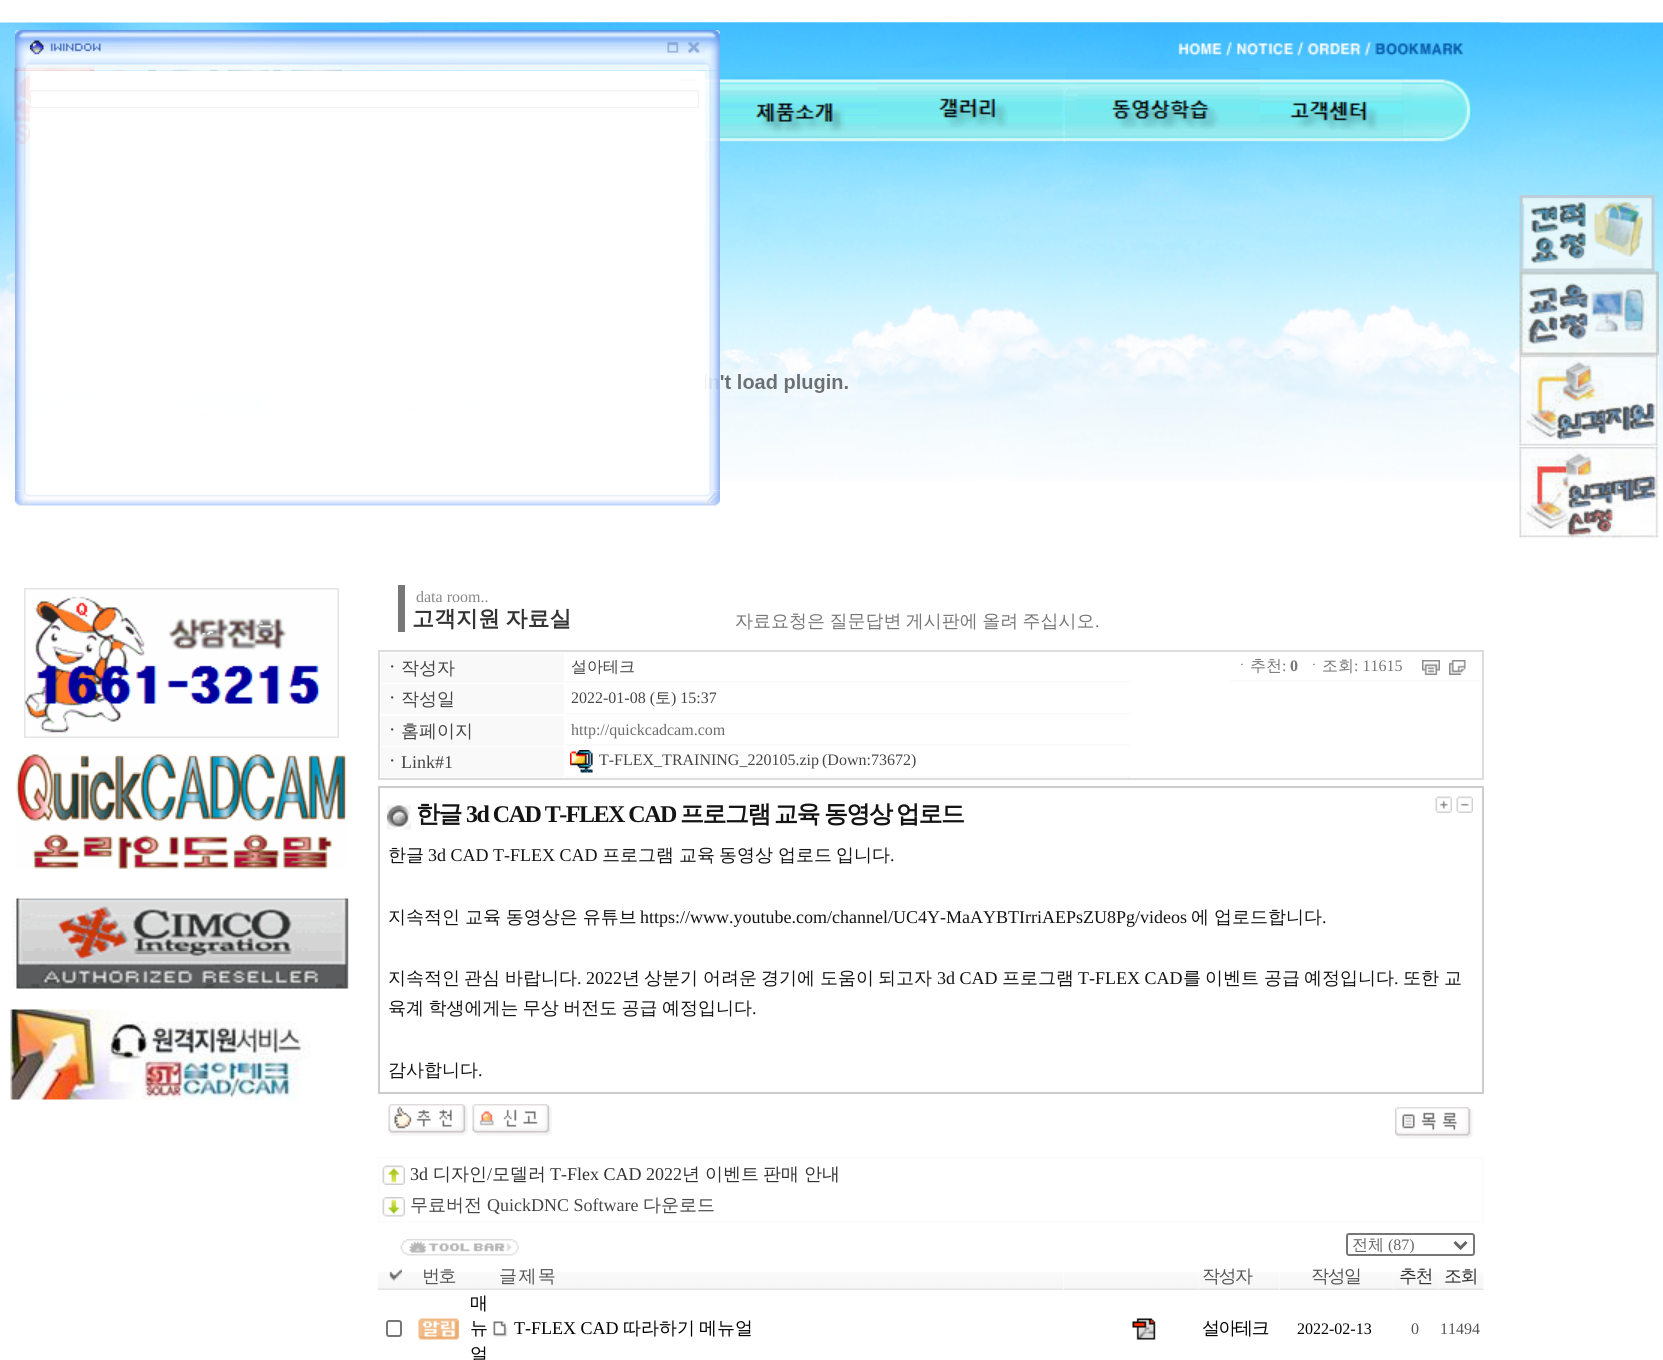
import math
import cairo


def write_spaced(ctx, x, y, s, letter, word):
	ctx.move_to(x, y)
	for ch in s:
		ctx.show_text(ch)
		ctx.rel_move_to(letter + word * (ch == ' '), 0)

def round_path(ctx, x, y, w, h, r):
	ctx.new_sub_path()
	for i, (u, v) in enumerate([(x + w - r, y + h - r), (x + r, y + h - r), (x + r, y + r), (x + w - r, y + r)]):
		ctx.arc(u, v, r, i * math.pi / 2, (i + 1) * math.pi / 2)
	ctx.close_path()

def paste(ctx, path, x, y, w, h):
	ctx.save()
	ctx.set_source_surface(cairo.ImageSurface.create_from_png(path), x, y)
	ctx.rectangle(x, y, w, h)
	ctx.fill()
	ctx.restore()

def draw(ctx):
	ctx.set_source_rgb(1, 1, 1)
	ctx.paint()
	paste(ctx, 'media/17.png', 0, 22, 1663, 459)
	paste(ctx, 'media/19.png', 14, 67, 330, 79)
	paste(ctx, 'media/1.png', 15, 30, 15, 41)
	paste(ctx, 'media/18.png', 390, 22, 1110, 34)
	paste(ctx, 'media/21.png', 562, 79, 841, 63)
	paste(ctx, 'media/20.png', 511, 79, 52, 63)
	paste(ctx, 'media/22.png', 715, 71, 163, 2)
	paste(ctx, 'media/23.png', 562, 68, 154, 73)
	paste(ctx, 'media/2.png', 30, 30, 675, 41)
	paste(ctx, 'media/3.png', 30, 40, 71, 15)
	paste(ctx, 'media/4.png', 667, 42, 12, 11)
	paste(ctx, 'media/5.png', 688, 42, 12, 11)
	paste(ctx, 'media/24.png', 715, 68, 163, 74)
	paste(ctx, 'media/6.png', 705, 30, 15, 41)
	paste(ctx, 'media/29.png', 0, 188, 552, 143)
	paste(ctx, 'media/7.png', 15, 70, 15, 421)
	paste(ctx, 'media/30.png', 642, 369, 216, 27)
	ctx.set_source_rgba(1, 1, 1, 0.97)
	ctx.rectangle(30, 71, 675, 410)
	ctx.fill()
	paste(ctx, 'media/8.png', 30, 70, 675, 319)
	paste(ctx, 'media/9.png', 705, 70, 15, 421)
	paste(ctx, 'media/10.png', 15, 490, 15, 16)
	paste(ctx, 'media/11.png', 30, 494, 675, 12)
	paste(ctx, 'media/12.png', 705, 490, 15, 16)
	paste(ctx, 'media/13.png', 1519, 195, 136, 77)
	paste(ctx, 'media/14.png', 1519, 271, 140, 85)
	paste(ctx, 'media/15.png', 1519, 355, 140, 92)
	paste(ctx, 'media/16.png', 1519, 447, 140, 92)
	paste(ctx, 'media/25.png', 877, 68, 188, 75)
	paste(ctx, 'media/26.png', 1065, 68, 195, 74)
	paste(ctx, 'media/28.png', 1402, 79, 70, 63)
	paste(ctx, 'media/27.png', 1260, 68, 143, 73)
	paste(ctx, 'media/31.png', 24, 588, 315, 150)
	paste(ctx, 'media/32.png', 16, 754, 330, 115)
	paste(ctx, 'media/33.png', 12, 898, 337, 91)
	paste(ctx, 'media/34.png', 10, 1009, 300, 91)
	ctx.set_source_rgb(0.467, 0.467, 0.467)
	ctx.rectangle(398, 585, 7, 47)
	ctx.fill()
	ctx.select_font_face('Liberation Serif')
	ctx.set_font_size(16)
	ctx.set_source_rgb(0.533, 0.533, 0.533)
	ctx.move_to(416, 602)
	ctx.show_text('data room..')
	ctx.select_font_face('WenQuanYi Zen Hei', cairo.FONT_SLANT_NORMAL, cairo.FONT_WEIGHT_BOLD)
	ctx.set_font_size(22)
	ctx.set_source_rgb(0.2, 0.2, 0.2)
	write_spaced(ctx, 412, 626, '고객지원 자료실', 0, -1)
	ctx.select_font_face('WenQuanYi Zen Hei Medium')
	ctx.set_font_size(18)
	ctx.set_source_rgb(0.467, 0.467, 0.467)
	write_spaced(ctx, 735, 627, '자료요청은 질문답변 게시판에 올려 주십시오', 0, -1)
	ctx.select_font_face('Liberation Serif')
	ctx.move_to(1095, 627)
	ctx.show_text('.')
	ctx.rectangle(379, 651, 1104, 128)
	ctx.set_source_rgb(0.867, 0.867, 0.867)
	ctx.stroke()
	ctx.set_source_rgb(0.973, 0.973, 0.973)
	ctx.rectangle(381, 653, 183, 30)
	ctx.fill()
	ctx.select_font_face('WenQuanYi Zen Hei', cairo.FONT_SLANT_NORMAL, cairo.FONT_WEIGHT_BOLD)
	ctx.set_source_rgb(0.271, 0.271, 0.271)
	ctx.move_to(383, 674)
	ctx.show_text('ㆍ')
	ctx.select_font_face('WenQuanYi Zen Hei Medium')
	ctx.move_to(401, 674)
	ctx.show_text('작성자')
	ctx.set_source_rgb(0.98, 0.98, 0.98)
	ctx.rectangle(566, 681, 564, 2)
	ctx.fill()
	ctx.set_font_size(16)
	ctx.set_source_rgb(0.271, 0.271, 0.271)
	ctx.move_to(571, 672)
	ctx.show_text('설아테크')
	ctx.set_source_rgb(0.973, 0.973, 0.973)
	ctx.rectangle(381, 684, 183, 30)
	ctx.fill()
	ctx.select_font_face('WenQuanYi Zen Hei', cairo.FONT_SLANT_NORMAL, cairo.FONT_WEIGHT_BOLD)
	ctx.set_font_size(18)
	ctx.set_source_rgb(0.271, 0.271, 0.271)
	ctx.move_to(383, 705)
	ctx.show_text('ㆍ')
	ctx.select_font_face('WenQuanYi Zen Hei Medium')
	ctx.move_to(401, 705)
	ctx.show_text('작성일')
	ctx.set_source_rgb(0.98, 0.98, 0.98)
	ctx.rectangle(566, 713, 564, 2)
	ctx.fill()
	ctx.select_font_face('Liberation Serif')
	ctx.set_font_size(16)
	ctx.set_source_rgb(0.271, 0.271, 0.271)
	ctx.move_to(571, 703)
	ctx.show_text('2022-01-08 (')
	ctx.select_font_face('WenQuanYi Zen Hei Medium')
	ctx.move_to(655, 703)
	ctx.show_text('토')
	ctx.select_font_face('Liberation Serif')
	ctx.move_to(671, 703)
	ctx.show_text(') 15:37')
	ctx.set_source_rgb(0.973, 0.973, 0.973)
	ctx.rectangle(381, 716, 183, 30)
	ctx.fill()
	ctx.select_font_face('WenQuanYi Zen Hei', cairo.FONT_SLANT_NORMAL, cairo.FONT_WEIGHT_BOLD)
	ctx.set_font_size(18)
	ctx.set_source_rgb(0.271, 0.271, 0.271)
	ctx.move_to(383, 737)
	ctx.show_text('ㆍ')
	ctx.select_font_face('WenQuanYi Zen Hei Medium')
	ctx.move_to(401, 737)
	ctx.show_text('홈페이지')
	ctx.set_source_rgb(0.98, 0.98, 0.98)
	ctx.rectangle(566, 744, 564, 2)
	ctx.fill()
	ctx.select_font_face('Liberation Serif')
	ctx.set_font_size(16)
	ctx.set_source_rgb(0.424, 0.424, 0.424)
	ctx.move_to(571, 735)
	ctx.show_text('http://quickcadcam.com')
	ctx.set_source_rgb(0.973, 0.973, 0.973)
	ctx.rectangle(381, 747, 183, 30)
	ctx.fill()
	ctx.select_font_face('WenQuanYi Zen Hei', cairo.FONT_SLANT_NORMAL, cairo.FONT_WEIGHT_BOLD)
	ctx.set_font_size(18)
	ctx.set_source_rgb(0.271, 0.271, 0.271)
	ctx.move_to(383, 768)
	ctx.show_text('ㆍ')
	ctx.select_font_face('Liberation Serif')
	ctx.move_to(401, 768)
	ctx.show_text('Link#1')
	ctx.set_source_rgb(0.98, 0.98, 0.98)
	ctx.rectangle(566, 776, 564, 2)
	ctx.fill()
	paste(ctx, 'media/35.png', 570, 750, 23, 23)
	ctx.set_font_size(16)
	ctx.set_source_rgb(0.271, 0.271, 0.271)
	ctx.move_to(599, 765)
	ctx.show_text('T-FLEX_TRAINING_220105.zip')
	ctx.move_to(822, 765)
	ctx.show_text('(Down:73672)')
	ctx.select_font_face('WenQuanYi Zen Hei Medium')
	ctx.set_source_rgb(0.467, 0.467, 0.467)
	ctx.move_to(1234, 671)
	ctx.show_text('ㆍ추천')
	ctx.select_font_face('Liberation Serif')
	ctx.move_to(1282, 671)
	ctx.show_text(':')
	ctx.select_font_face('Liberation Serif', cairo.FONT_SLANT_NORMAL, cairo.FONT_WEIGHT_BOLD)
	ctx.move_to(1290, 671)
	ctx.show_text('0')
	ctx.select_font_face('WenQuanYi Zen Hei Medium')
	ctx.move_to(1306, 671)
	ctx.show_text('ㆍ조회')
	ctx.select_font_face('Liberation Serif')
	ctx.move_to(1354, 671)
	ctx.show_text(': 11615')
	paste(ctx, 'media/36.png', 1422, 660, 18, 15)
	paste(ctx, 'media/37.png', 1449, 660, 17, 15)
	ctx.set_source_rgb(0.98, 0.98, 0.98)
	ctx.rectangle(1230, 680, 251, 2)
	ctx.fill()
	ctx.rectangle(379, 787, 1104, 306)
	ctx.set_source_rgb(0.8, 0.8, 0.8)
	ctx.stroke()
	paste(ctx, 'media/38.png', 387, 805, 24, 25)
	ctx.select_font_face('WenQuanYi Zen Hei', cairo.FONT_SLANT_NORMAL, cairo.FONT_WEIGHT_BOLD)
	ctx.set_font_size(24)
	ctx.set_source_rgb(0.082, 0.082, 0.082)
	write_spaced(ctx, 416, 822, '한글', -1.5, 0)
	ctx.select_font_face('Liberation Serif', cairo.FONT_SLANT_NORMAL, cairo.FONT_WEIGHT_BOLD)
	write_spaced(ctx, 466, 822, '3d CAD T-FLEX CAD', -1.5, 0)
	ctx.select_font_face('WenQuanYi Zen Hei', cairo.FONT_SLANT_NORMAL, cairo.FONT_WEIGHT_BOLD)
	for x, y, s in [
		(680, 822, '프로그램'),
		(774, 822, '교육'),
		(824, 822, '동영상'),
		(896, 822, '업로드'),
	]:
		write_spaced(ctx, x, y, s, -1.5, 0)
	paste(ctx, 'media/39.png', 1435, 796, 17, 17)
	paste(ctx, 'media/40.png', 1456, 796, 17, 17)
	ctx.select_font_face('WenQuanYi Zen Hei Medium')
	ctx.set_font_size(18)
	ctx.move_to(388, 861)
	ctx.show_text('한글')
	ctx.select_font_face('Liberation Serif')
	ctx.move_to(428, 861)
	ctx.show_text('3d CAD T-FLEX CAD')
	ctx.select_font_face('WenQuanYi Zen Hei Medium')
	for x, y, s in [
		(602, 861, '프로그램'),
		(679, 861, '교육'),
		(719, 861, '동영상'),
		(778, 861, '업로드'),
		(836, 861, '입니다'),
	]:
		ctx.move_to(x, y)
		ctx.show_text(s)
	ctx.select_font_face('Liberation Serif')
	ctx.move_to(890, 861)
	ctx.show_text('.')
	ctx.select_font_face('WenQuanYi Zen Hei Medium')
	write_spaced(ctx, 388, 923, '지속적인 교육 동영상은 유튜브', 0, -0.5)
	ctx.select_font_face('Liberation Serif')
	ctx.move_to(640, 923)
	ctx.show_text('https://www.youtube.com/channel/UC4Y-MaAYBTIrriAEPsZU8Pg/videos')
	ctx.select_font_face('WenQuanYi Zen Hei Medium')
	write_spaced(ctx, 1191, 923, '에 업로드합니다', 0, -0.5)
	ctx.select_font_face('Liberation Serif')
	ctx.move_to(1322, 923)
	ctx.show_text('.')
	ctx.select_font_face('WenQuanYi Zen Hei Medium')
	for x, y, s in [
		(388, 984, '지속적인'),
		(464, 984, '관심'),
		(505, 984, '바랍니다'),
	]:
		ctx.move_to(x, y)
		ctx.show_text(s)
	ctx.select_font_face('Liberation Serif')
	ctx.move_to(577, 984)
	ctx.show_text('. 2022')
	ctx.select_font_face('WenQuanYi Zen Hei Medium')
	for x, y, s in [
		(622, 984, '년'),
		(644, 984, '상분기'),
		(703, 984, '어려운'),
		(761, 984, '경기에'),
		(820, 984, '도움이'),
		(878, 984, '되고자'),
	]:
		ctx.move_to(x, y)
		ctx.show_text(s)
	ctx.select_font_face('Liberation Serif')
	ctx.move_to(937, 984)
	ctx.show_text('3d CAD')
	ctx.select_font_face('WenQuanYi Zen Hei Medium')
	ctx.move_to(1002, 984)
	ctx.show_text('프로그램')
	ctx.select_font_face('Liberation Serif')
	ctx.move_to(1078, 984)
	ctx.show_text('T-FLEX CAD')
	ctx.select_font_face('WenQuanYi Zen Hei Medium')
	for x, y, s in [
		(1183, 984, '를'),
		(1205, 984, '이벤트'),
		(1264, 984, '공급'),
		(1304, 984, '예정입니다'),
	]:
		ctx.move_to(x, y)
		ctx.show_text(s)
	ctx.select_font_face('Liberation Serif')
	ctx.move_to(1394, 984)
	ctx.show_text('.')
	ctx.select_font_face('WenQuanYi Zen Hei Medium')
	ctx.move_to(1403, 984)
	ctx.show_text('또한')
	ctx.move_to(1444, 984)
	ctx.show_text('교')
	write_spaced(ctx, 388, 1014, '육계 학생에게는 무상 버전도 공급 예정입니다', 0, -1)
	ctx.select_font_face('Liberation Serif')
	ctx.move_to(752, 1014)
	ctx.show_text('.')
	ctx.select_font_face('WenQuanYi Zen Hei Medium')
	ctx.move_to(388, 1076)
	ctx.show_text('감사합니다')
	ctx.select_font_face('Liberation Serif')
	ctx.move_to(478, 1076)
	ctx.show_text('.')
	paste(ctx, 'media/41.png', 388, 1104, 80, 32)
	paste(ctx, 'media/42.png', 472, 1104, 80, 32)
	paste(ctx, 'media/43.png', 1395, 1107, 78, 32)
	ctx.rectangle(379, 1158, 1104, 64)
	ctx.set_source_rgb(0.988, 0.988, 0.988)
	ctx.stroke()
	paste(ctx, 'media/44.png', 382, 1165, 23, 20)
	ctx.set_source_rgb(0.2, 0.2, 0.2)
	ctx.move_to(410, 1180)
	ctx.show_text('3d')
	ctx.select_font_face('WenQuanYi Zen Hei Medium')
	ctx.move_to(433, 1180)
	ctx.show_text('디자인')
	ctx.select_font_face('Liberation Serif')
	ctx.move_to(487, 1180)
	ctx.show_text('/')
	ctx.select_font_face('WenQuanYi Zen Hei Medium')
	ctx.move_to(492, 1180)
	ctx.show_text('모델러')
	ctx.select_font_face('Liberation Serif')
	ctx.move_to(550, 1180)
	ctx.show_text('T-Flex CAD 2022')
	ctx.select_font_face('WenQuanYi Zen Hei Medium')
	for x, y, s in [
		(682, 1180, '년'),
		(705, 1180, '이벤트'),
		(763, 1180, '판매'),
		(804, 1180, '안내'),
	]:
		ctx.move_to(x, y)
		ctx.show_text(s)
	paste(ctx, 'media/45.png', 382, 1197, 23, 20)
	ctx.set_source_rgb(0.271, 0.271, 0.271)
	ctx.move_to(410, 1211)
	ctx.show_text('무료버전')
	ctx.select_font_face('Liberation Serif')
	ctx.move_to(487, 1211)
	ctx.show_text('QuickDNC Software')
	ctx.select_font_face('WenQuanYi Zen Hei Medium')
	ctx.move_to(643, 1211)
	ctx.show_text('다운로드')
	paste(ctx, 'media/46.png', 400, 1239, 119, 17)
	round_path(ctx, 1347, 1234, 127, 21, 2)
	ctx.set_source_rgb(0.463, 0.463, 0.463)
	ctx.stroke()
	ctx.new_path()
	ctx.move_to(1454.5, 1242)
	ctx.line_to(1460.5, 1248)
	ctx.line_to(1466.5, 1242)
	ctx.set_source_rgb(0.4, 0.4, 0.4)
	ctx.set_line_width(3)
	ctx.stroke()
	ctx.set_font_size(16)
	ctx.move_to(1352, 1250)
	ctx.show_text('전체')
	ctx.select_font_face('Liberation Serif')
	ctx.move_to(1388, 1250)
	ctx.show_text('(87)')
	paste(ctx, 'media/47.png', 378, 1272, 30, 18)
	paste(ctx, 'media/48.png', 389, 1268, 13, 14)
	paste(ctx, 'media/49.png', 408, 1272, 60, 18)
	ctx.select_font_face('WenQuanYi Zen Hei Medium')
	ctx.set_font_size(18)
	ctx.set_source_rgb(0.333, 0.333, 0.333)
	write_spaced(ctx, 422, 1282, '번호', -1.5, 0)
	paste(ctx, 'media/50.png', 468, 1272, 21, 18)
	paste(ctx, 'media/51.png', 489, 1272, 575, 18)
	write_spaced(ctx, 499, 1282, '글 제 목', -1.5, -1)
	paste(ctx, 'media/52.png', 1064, 1272, 67, 18)
	paste(ctx, 'media/53.png', 1131, 1272, 68, 18)
	paste(ctx, 'media/54.png', 1199, 1272, 81, 18)
	write_spaced(ctx, 1202, 1282, '작성자', -1.5, 0)
	paste(ctx, 'media/55.png', 1280, 1272, 114, 18)
	write_spaced(ctx, 1311, 1282, '작성일', -1.5, 0)
	paste(ctx, 'media/56.png', 1394, 1272, 45, 18)
	ctx.set_source_rgb(0.2, 0.2, 0.2)
	write_spaced(ctx, 1399, 1282, '추천', -1.5, 0)
	paste(ctx, 'media/56.png', 1439, 1272, 45, 18)
	write_spaced(ctx, 1444, 1282, '조회', -1.5, 0)
	round_path(ctx, 387, 1321, 14, 15, 2)
	ctx.set_source_rgb(0.463, 0.463, 0.463)
	ctx.set_line_width(2)
	ctx.stroke()
	paste(ctx, 'media/57.png', 418, 1318, 41, 22)
	ctx.set_source_rgb(0, 0, 0)
	for x, y, s in [
		(470, 1309, '매'),
		(470, 1334, '뉴'),
		(470, 1360, '얼'),
	]:
		write_spaced(ctx, x, y, s, -1.5, 0)
	paste(ctx, 'media/58.png', 493, 1321, 15, 16)
	ctx.select_font_face('Liberation Serif')
	ctx.move_to(514, 1334)
	ctx.show_text('T-FLEX CAD')
	ctx.select_font_face('WenQuanYi Zen Hei Medium')
	ctx.move_to(623, 1334)
	ctx.show_text('따라하기')
	ctx.move_to(699, 1334)
	ctx.show_text('메뉴얼')
	paste(ctx, 'media/59.png', 1132, 1318, 24, 22)
	write_spaced(ctx, 1202, 1334, '설아테크', -1.5, 0)
	ctx.select_font_face('Liberation Serif')
	ctx.set_font_size(16)
	ctx.move_to(1297, 1334)
	ctx.show_text('2022-02-13')
	ctx.set_source_rgb(0.333, 0.333, 0.333)
	ctx.move_to(1411, 1334)
	ctx.show_text('0')
	ctx.move_to(1440, 1334)
	ctx.show_text('11494')


surface = cairo.ImageSurface(cairo.FORMAT_RGB24, 1663, 1360)
ctx = cairo.Context(surface)
options = cairo.FontOptions()
options.set_hint_metrics(cairo.HINT_METRICS_OFF)
options.set_hint_style(cairo.HINT_STYLE_NONE)
ctx.set_font_options(options)
ctx.set_miter_limit(4)
draw(ctx)
surface.write_to_png('image.png')
